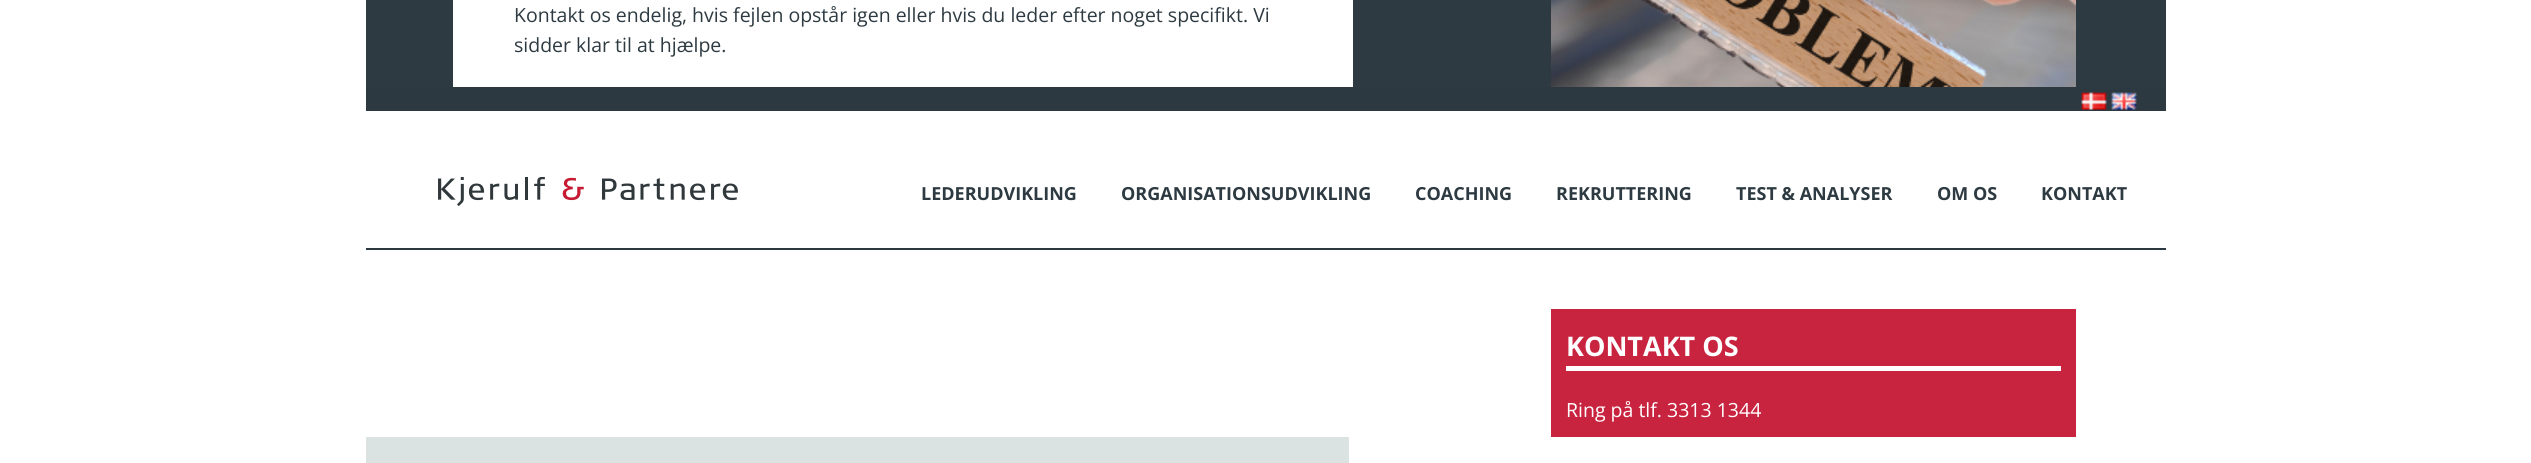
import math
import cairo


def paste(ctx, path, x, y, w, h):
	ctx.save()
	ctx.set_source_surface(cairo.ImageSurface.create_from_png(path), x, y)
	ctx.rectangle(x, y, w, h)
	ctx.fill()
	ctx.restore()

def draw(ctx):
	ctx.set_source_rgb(1, 1, 1)
	ctx.paint()
	ctx.set_source_rgb(0.176, 0.227, 0.255)
	ctx.rectangle(366, 0, 1800, 87)
	ctx.fill()
	ctx.set_source_rgb(1, 1, 1)
	ctx.rectangle(453, 0, 900, 87)
	ctx.fill()
	ctx.select_font_face('Open Sans')
	ctx.set_font_size(19.5)
	ctx.set_source_rgb(0.176, 0.227, 0.255)
	ctx.move_to(514, 22)
	ctx.show_text('Kontakt os endelig, hvis fejlen opstår igen eller hvis du leder efter noget specifikt. Vi')
	ctx.move_to(514, 52)
	ctx.show_text('sidder klar til at hjælpe.')
	paste(ctx, 'media/1.png', 1551, 0, 525, 87)
	ctx.set_source_rgb(0.788, 0.141, 0.247)
	ctx.rectangle(1551, 309, 525, 128)
	ctx.fill()
	ctx.set_source_rgb(1, 1, 1)
	ctx.rectangle(1566, 366, 495, 5)
	ctx.fill()
	ctx.select_font_face('Open Sans', cairo.FONT_SLANT_NORMAL, cairo.FONT_WEIGHT_BOLD)
	ctx.set_font_size(27)
	ctx.move_to(1566, 356)
	ctx.show_text('KONTAKT OS')
	ctx.select_font_face('Open Sans')
	ctx.set_font_size(19.5)
	ctx.move_to(1566, 417)
	ctx.show_text('Ring på tlf. 3313 1344')
	ctx.set_source_rgb(0.173, 0.224, 0.251)
	ctx.rectangle(366, 87, 1800, 24)
	ctx.fill()
	paste(ctx, 'media/2.png', 2081, 92, 26, 18)
	paste(ctx, 'media/3.png', 2111, 92, 26, 18)
	paste(ctx, 'media/4.png', 438, 177, 300, 30)
	ctx.rectangle(366, 248, 1800, 2)
	ctx.fill()
	ctx.select_font_face('Open Sans', cairo.FONT_SLANT_NORMAL, cairo.FONT_WEIGHT_BOLD)
	ctx.set_font_size(18)
	ctx.set_source_rgb(0.176, 0.227, 0.255)
	for x, y, s in [
		(921, 200, 'LEDERUDVIKLING'),
		(1121, 200, 'ORGANISATIONSUDVIKLING'),
		(1415, 200, 'COACHING'),
		(1556, 200, 'REKRUTTERING'),
		(1736, 200, 'TEST & ANALYSER'),
		(1937, 200, 'OM OS'),
		(2041, 200, 'KONTAKT'),
	]:
		ctx.move_to(x, y)
		ctx.show_text(s)
	ctx.set_source_rgb(0.855, 0.89, 0.886)
	ctx.rectangle(366, 437, 983, 26)
	ctx.fill()


surface = cairo.ImageSurface(cairo.FORMAT_RGB24, 2531, 463)
ctx = cairo.Context(surface)
options = cairo.FontOptions()
options.set_hint_metrics(cairo.HINT_METRICS_OFF)
options.set_hint_style(cairo.HINT_STYLE_NONE)
ctx.set_font_options(options)
ctx.set_miter_limit(4)
draw(ctx)
surface.write_to_png('image.png')
